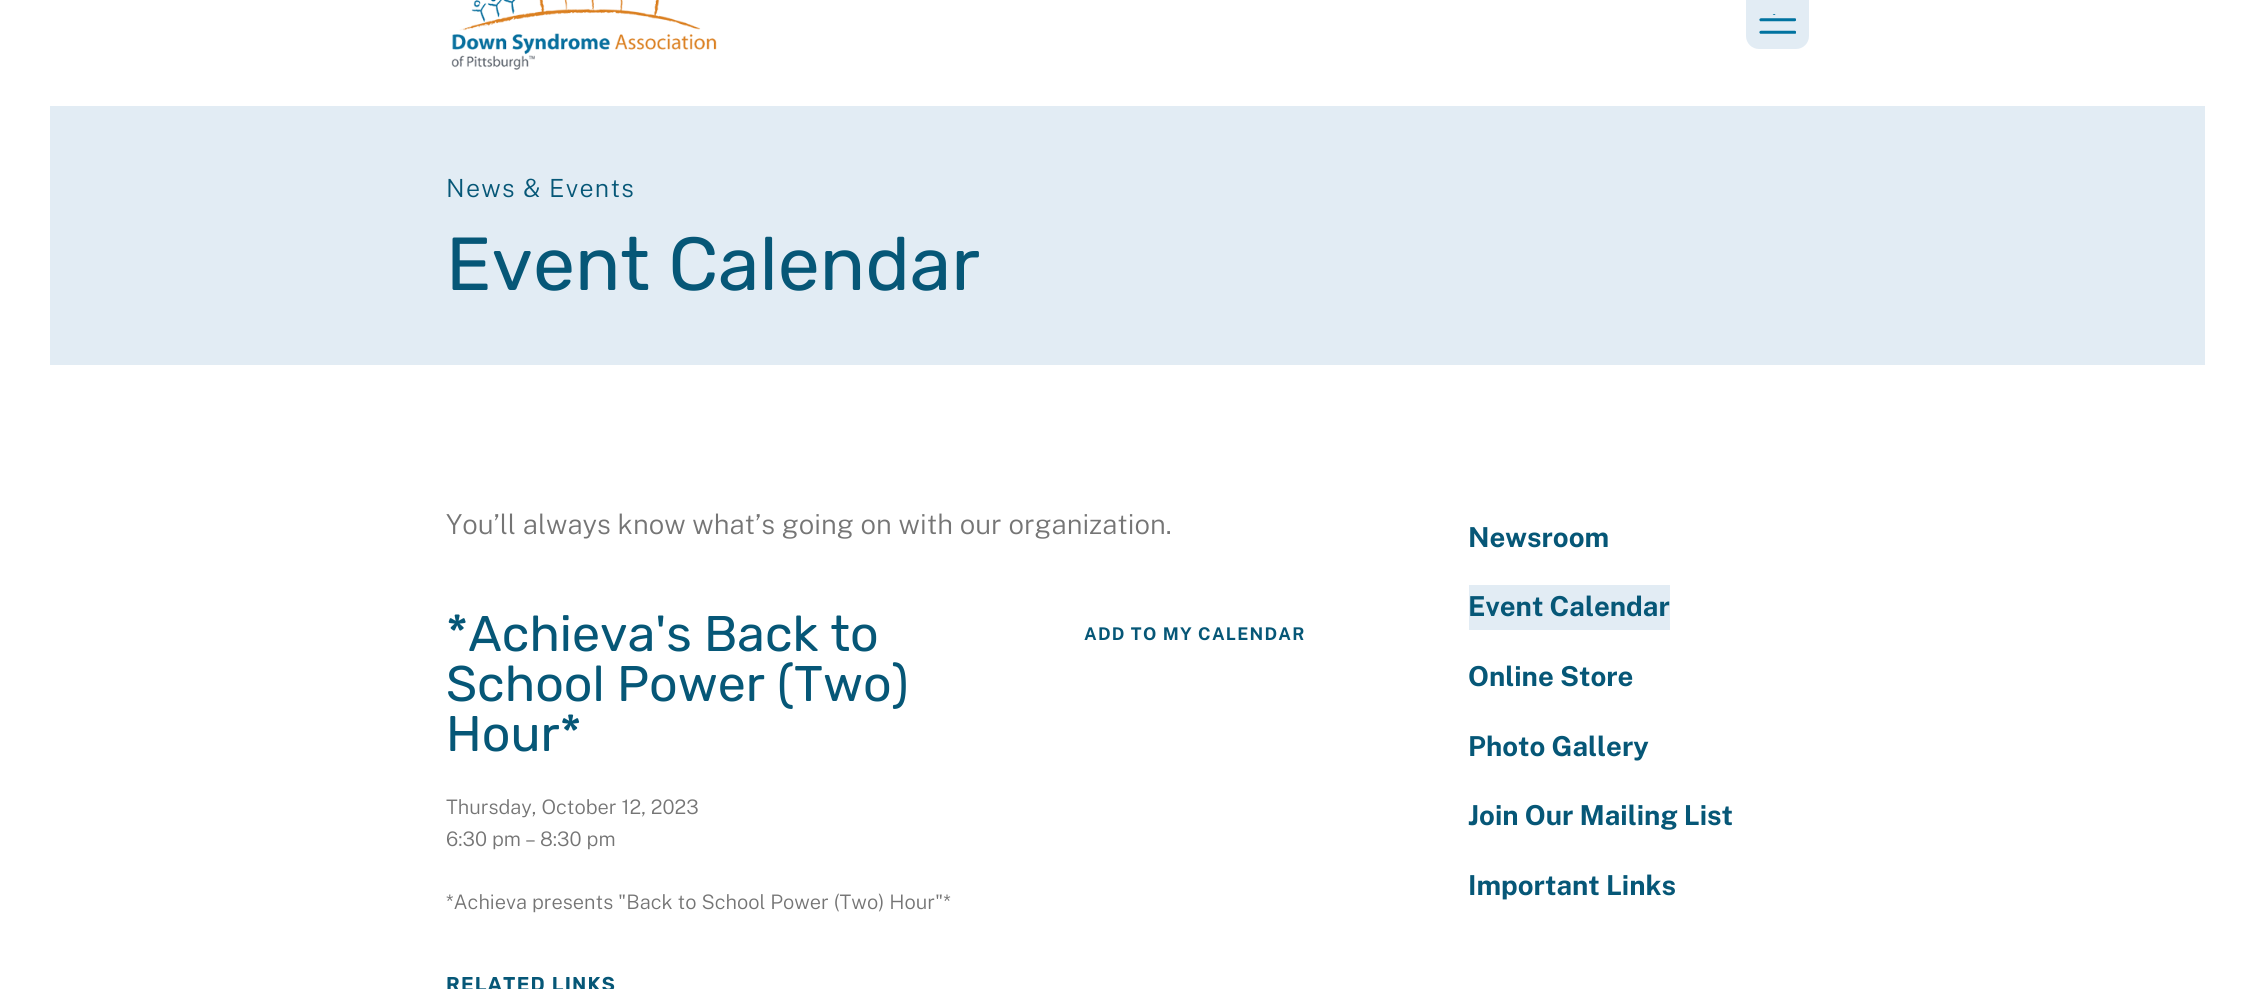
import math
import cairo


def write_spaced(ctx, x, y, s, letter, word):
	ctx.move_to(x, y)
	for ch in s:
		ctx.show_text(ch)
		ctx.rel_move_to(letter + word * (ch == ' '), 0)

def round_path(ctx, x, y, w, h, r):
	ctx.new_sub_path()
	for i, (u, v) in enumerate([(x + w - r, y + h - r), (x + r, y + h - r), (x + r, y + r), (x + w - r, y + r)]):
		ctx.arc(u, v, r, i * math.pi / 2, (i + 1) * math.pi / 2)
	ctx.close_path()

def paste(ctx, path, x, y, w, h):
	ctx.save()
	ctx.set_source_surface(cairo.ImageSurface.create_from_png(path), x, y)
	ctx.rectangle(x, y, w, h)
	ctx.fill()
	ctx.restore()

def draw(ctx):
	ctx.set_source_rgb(1, 1, 1)
	ctx.paint()
	paste(ctx, 'media/1.png', 451, 0, 266, 70)
	ctx.set_source_rgb(0.886, 0.925, 0.957)
	round_path(ctx, 1746, -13, 63, 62, 13)
	ctx.fill()
	paste(ctx, 'media/2.png', 1759, 14, 37, 20)
	ctx.rectangle(50, 106, 2155, 259)
	ctx.fill()
	ctx.select_font_face('Public Sans Light')
	ctx.set_font_size(25)
	ctx.set_source_rgb(0.024, 0.341, 0.467)
	write_spaced(ctx, 446, 197, 'News & Events', 1.25, 0)
	ctx.select_font_face('Rubik')
	ctx.set_font_size(75)
	ctx.move_to(446, 290)
	ctx.show_text('Event Calendar')
	ctx.select_font_face('Public Sans Light')
	ctx.set_font_size(27.5)
	ctx.set_source_rgb(0.459, 0.459, 0.459)
	ctx.move_to(446, 534)
	ctx.show_text('You’ll always know what’s going on with our organization.')
	ctx.select_font_face('Rubik')
	ctx.set_font_size(50)
	ctx.set_source_rgb(0.024, 0.341, 0.467)
	for x, y, s in [
		(446, 651, '*Achieva\'s Back to'),
		(446, 701, 'School Power (Two)'),
		(446, 751, 'Hour*'),
	]:
		ctx.move_to(x, y)
		ctx.show_text(s)
	ctx.select_font_face('Public Sans Light')
	ctx.set_font_size(20)
	ctx.set_source_rgb(0.459, 0.459, 0.459)
	for x, y, s in [
		(446, 814, 'Thursday, October 12, 2023'),
		(446, 846, '6:30 pm'),
		(525, 846, '–'),
		(540, 846, '8:30 pm'),
	]:
		ctx.move_to(x, y)
		ctx.show_text(s)
	ctx.select_font_face('Public Sans', cairo.FONT_SLANT_NORMAL, cairo.FONT_WEIGHT_BOLD)
	ctx.set_font_size(17.5)
	ctx.set_source_rgb(0.024, 0.341, 0.467)
	write_spaced(ctx, 1084, 640, 'ADD TO MY CALENDAR', 1.25, 0)
	ctx.select_font_face('Public Sans Light')
	ctx.set_font_size(20)
	ctx.set_source_rgb(0.459, 0.459, 0.459)
	ctx.move_to(446, 909)
	ctx.show_text('*Achieva presents "Back to School Power (Two) Hour"*')
	ctx.select_font_face('Rubik SemiBold')
	ctx.set_source_rgb(0.024, 0.341, 0.467)
	write_spaced(ctx, 446, 991, 'RELATED LINKS', 1.25, 0)
	ctx.select_font_face('Public Sans', cairo.FONT_SLANT_NORMAL, cairo.FONT_WEIGHT_BOLD)
	ctx.set_font_size(27.5)
	ctx.move_to(1468, 547)
	ctx.show_text('Newsroom')
	ctx.set_source_rgb(0.886, 0.925, 0.957)
	ctx.rectangle(1469, 585, 201, 45)
	ctx.fill()
	ctx.set_source_rgb(0.024, 0.341, 0.467)
	for x, y, s in [
		(1468, 616, 'Event Calendar'),
		(1468, 686, 'Online Store'),
		(1468, 756, 'Photo Gallery'),
		(1468, 825, 'Join Our Mailing List'),
		(1468, 895, 'Important Links'),
	]:
		ctx.move_to(x, y)
		ctx.show_text(s)


surface = cairo.ImageSurface(cairo.FORMAT_RGB24, 2254, 989)
ctx = cairo.Context(surface)
options = cairo.FontOptions()
options.set_hint_metrics(cairo.HINT_METRICS_OFF)
options.set_hint_style(cairo.HINT_STYLE_NONE)
ctx.set_font_options(options)
ctx.set_miter_limit(4)
draw(ctx)
surface.write_to_png('image.png')
